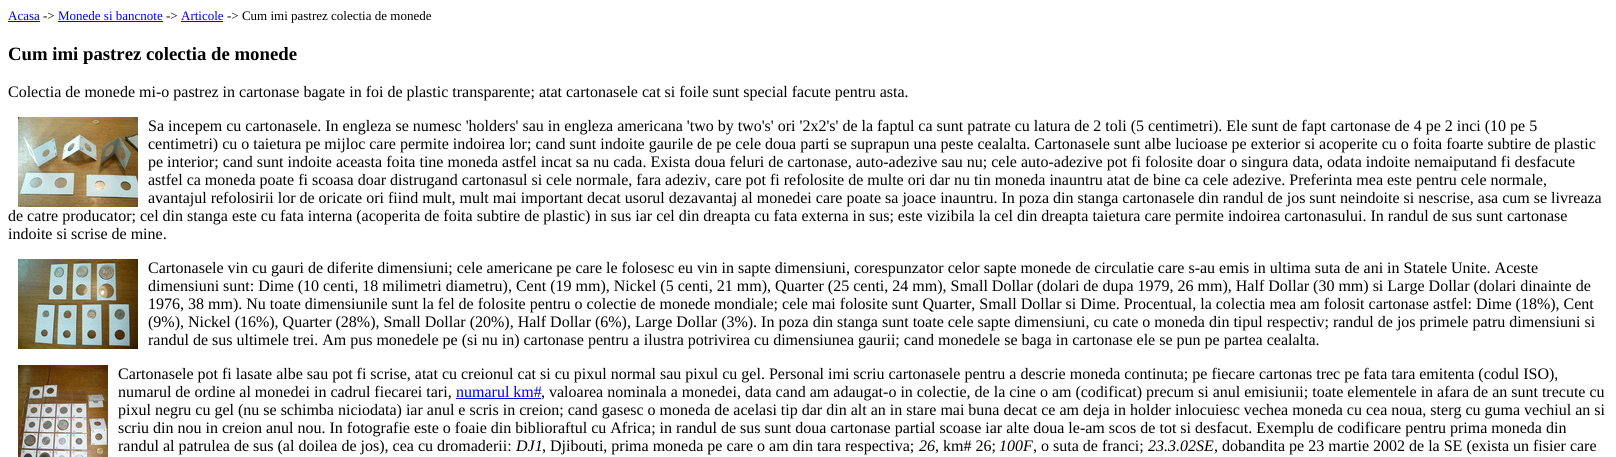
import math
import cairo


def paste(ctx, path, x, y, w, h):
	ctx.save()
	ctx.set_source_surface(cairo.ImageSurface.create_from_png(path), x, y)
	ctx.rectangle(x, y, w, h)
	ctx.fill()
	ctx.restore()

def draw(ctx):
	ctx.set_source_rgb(1, 1, 1)
	ctx.paint()
	ctx.select_font_face('Liberation Serif')
	ctx.set_font_size(13)
	ctx.set_source_rgb(0, 0, 0.933)
	ctx.move_to(8, 20)
	ctx.show_text('Acasa')
	ctx.rectangle(8, 21, 32, 1)
	ctx.fill()
	ctx.set_source_rgb(0, 0, 0)
	ctx.move_to(43, 20)
	ctx.show_text('->')
	ctx.set_source_rgb(0, 0, 0.933)
	ctx.move_to(58, 20)
	ctx.show_text('Monede si bancnote')
	ctx.rectangle(58, 21, 105, 1)
	ctx.fill()
	ctx.set_source_rgb(0, 0, 0)
	ctx.move_to(166, 20)
	ctx.show_text('->')
	ctx.set_source_rgb(0, 0, 0.933)
	ctx.move_to(181, 20)
	ctx.show_text('Articole')
	ctx.rectangle(181, 21, 42, 1)
	ctx.fill()
	ctx.set_source_rgb(0, 0, 0)
	ctx.move_to(227, 20)
	ctx.show_text('-> Cum imi pastrez colectia de monede')
	ctx.select_font_face('Liberation Serif', cairo.FONT_SLANT_NORMAL, cairo.FONT_WEIGHT_BOLD)
	ctx.set_font_size(18.75)
	ctx.move_to(8, 60)
	ctx.show_text('Cum imi pastrez colectia de monede')
	ctx.select_font_face('Liberation Serif')
	ctx.set_font_size(16)
	ctx.move_to(8, 97)
	ctx.show_text('Colectia de monede mi-o pastrez in cartonase bagate in foi de plastic transparente; atat cartonasele cat si foile sunt special facute pentru asta.')
	paste(ctx, 'media/1.png', 18, 117, 120, 90)
	for x, y, s in [
		(148, 131, 'Sa incepem cu cartonasele. In engleza se numesc \'holders\' sau in engleza americana \'two by two\'s\' ori \'2x2\'s\' de la faptul ca sunt patrate cu latura de 2 toli (5 centimetri). Ele sunt de fapt cartonase de 4 pe 2 inci (10 pe 5'),
		(148, 149, 'centimetri) cu o taietura pe mijloc care permite indoirea lor; cand sunt indoite gaurile de pe cele doua parti se suprapun una peste cealalta. Cartonasele sunt albe lucioase pe exterior si acoperite cu o foita foarte subtire de plastic'),
		(148, 167, 'pe interior; cand sunt indoite aceasta foita tine moneda astfel incat sa nu cada. Exista doua feluri de cartonase, auto-adezive sau nu; cele auto-adezive pot fi folosite doar o singura data, odata indoite nemaiputand fi desfacute'),
		(148, 185, 'astfel ca moneda poate fi scoasa doar distrugand cartonasul si cele normale, fara adeziv, care pot fi refolosite de multe ori dar nu tin moneda inauntru atat de bine ca cele adezive. Preferinta mea este pentru cele normale,'),
		(148, 203, 'avantajul refolosirii lor de oricate ori fiind mult, mult mai important decat usorul dezavantaj al monedei care poate sa joace inauntru. In poza din stanga cartonasele din randul de jos sunt neindoite si nescrise, asa cum se livreaza'),
		(8, 221, 'de catre producator; cel din stanga este cu fata interna (acoperita de foita subtire de plastic) in sus iar cel din dreapta cu fata externa in sus; este vizibila la cel din dreapta taietura care permite indoirea cartonasului. In randul de sus sunt cartonase'),
		(8, 239, 'indoite si scrise de mine.'),
	]:
		ctx.move_to(x, y)
		ctx.show_text(s)
	paste(ctx, 'media/2.png', 18, 259, 120, 90)
	for x, y, s in [
		(148, 273, 'Cartonasele vin cu gauri de diferite dimensiuni; cele americane pe care le folosesc eu vin in sapte dimensiuni, corespunzator celor sapte monede de circulatie care s-au emis in ultima suta de ani in Statele Unite. Aceste'),
		(148, 291, 'dimensiuni sunt: Dime (10 centi, 18 milimetri diametru), Cent (19 mm), Nickel (5 centi, 21 mm), Quarter (25 centi, 24 mm), Small Dollar (dolari de dupa 1979, 26 mm), Half Dollar (30 mm) si Large Dollar (dolari dinainte de'),
		(148, 309, '1976, 38 mm). Nu toate dimensiunile sunt la fel de folosite pentru o colectie de monede mondiale; cele mai folosite sunt Quarter, Small Dollar si Dime. Procentual, la colectia mea am folosit cartonase astfel: Dime (18%), Cent'),
		(148, 327, '(9%), Nickel (16%), Quarter (28%), Small Dollar (20%), Half Dollar (6%), Large Dollar (3%). In poza din stanga sunt toate cele sapte dimensiuni, cu cate o moneda din tipul respectiv; randul de jos primele patru dimensiuni si'),
		(148, 345, 'randul de sus ultimele trei. Am pus monedele pe (si nu in) cartonase pentru a ilustra potrivirea cu dimensiunea gaurii; cand monedele se baga in cartonase ele se pun pe partea cealalta.'),
	]:
		ctx.move_to(x, y)
		ctx.show_text(s)
	paste(ctx, 'media/3.png', 18, 365, 90, 92)
	ctx.move_to(118, 379)
	ctx.show_text('Cartonasele pot fi lasate albe sau pot fi scrise, atat cu creionul cat si cu pixul normal sau pixul cu gel. Personal imi scriu cartonasele pentru a descrie moneda continuta; pe fiecare cartonas trec pe fata tara emitenta (codul ISO),')
	ctx.move_to(118, 397)
	ctx.show_text('numarul de ordine al monedei in cadrul fiecarei tari,')
	ctx.set_source_rgb(0, 0, 0.933)
	ctx.move_to(456, 397)
	ctx.show_text('numarul km#')
	ctx.rectangle(456, 398, 85, 1)
	ctx.fill()
	ctx.set_source_rgb(0, 0, 0)
	for x, y, s in [
		(541, 397, ', valoarea nominala a monedei, data cand am adaugat-o in colectie, de la cine o am (codificat) precum si anul emisiunii; toate elementele in afara de an sunt trecute cu'),
		(118, 415, 'pixul negru cu gel (nu se schimba niciodata) iar anul e scris in creion; cand gasesc o moneda de acelasi tip dar din alt an in stare mai buna decat ce am deja in holder inlocuiesc vechea moneda cu cea noua, sterg cu guma vechiul an si'),
		(118, 433, 'scriu din nou in creion anul nou. In fotografie este o foaie din biblioraftul cu Africa; in randul de sus sunt doua cartonase partial scoase iar alte doua le-am scos de tot si desfacut. Exemplu de codificare pentru prima moneda din'),
		(118, 451, 'randul al patrulea de sus (al doilea de jos), cea cu dromaderii:'),
	]:
		ctx.move_to(x, y)
		ctx.show_text(s)
	ctx.select_font_face('Liberation Serif', cairo.FONT_SLANT_ITALIC)
	ctx.move_to(516, 451)
	ctx.show_text('DJ1')
	ctx.select_font_face('Liberation Serif')
	ctx.move_to(542, 451)
	ctx.show_text(', Djibouti, prima moneda pe care o am din tara respectiva;')
	ctx.select_font_face('Liberation Serif', cairo.FONT_SLANT_ITALIC)
	ctx.move_to(919, 451)
	ctx.show_text('26')
	ctx.select_font_face('Liberation Serif')
	ctx.move_to(935, 451)
	ctx.show_text(', km# 26;')
	ctx.select_font_face('Liberation Serif', cairo.FONT_SLANT_ITALIC)
	ctx.move_to(999, 451)
	ctx.show_text('100F')
	ctx.select_font_face('Liberation Serif')
	ctx.move_to(1033, 451)
	ctx.show_text(', o suta de franci;')
	ctx.select_font_face('Liberation Serif', cairo.FONT_SLANT_ITALIC)
	ctx.move_to(1148, 451)
	ctx.show_text('23.3.02SE')
	ctx.select_font_face('Liberation Serif')
	ctx.move_to(1214, 451)
	ctx.show_text(', dobandita pe 23 martie 2002 de la SE (exista un fisier care')


surface = cairo.ImageSurface(cairo.FORMAT_RGB24, 1616, 457)
ctx = cairo.Context(surface)
options = cairo.FontOptions()
options.set_hint_metrics(cairo.HINT_METRICS_OFF)
options.set_hint_style(cairo.HINT_STYLE_NONE)
ctx.set_font_options(options)
ctx.set_miter_limit(4)
draw(ctx)
surface.write_to_png('image.png')
